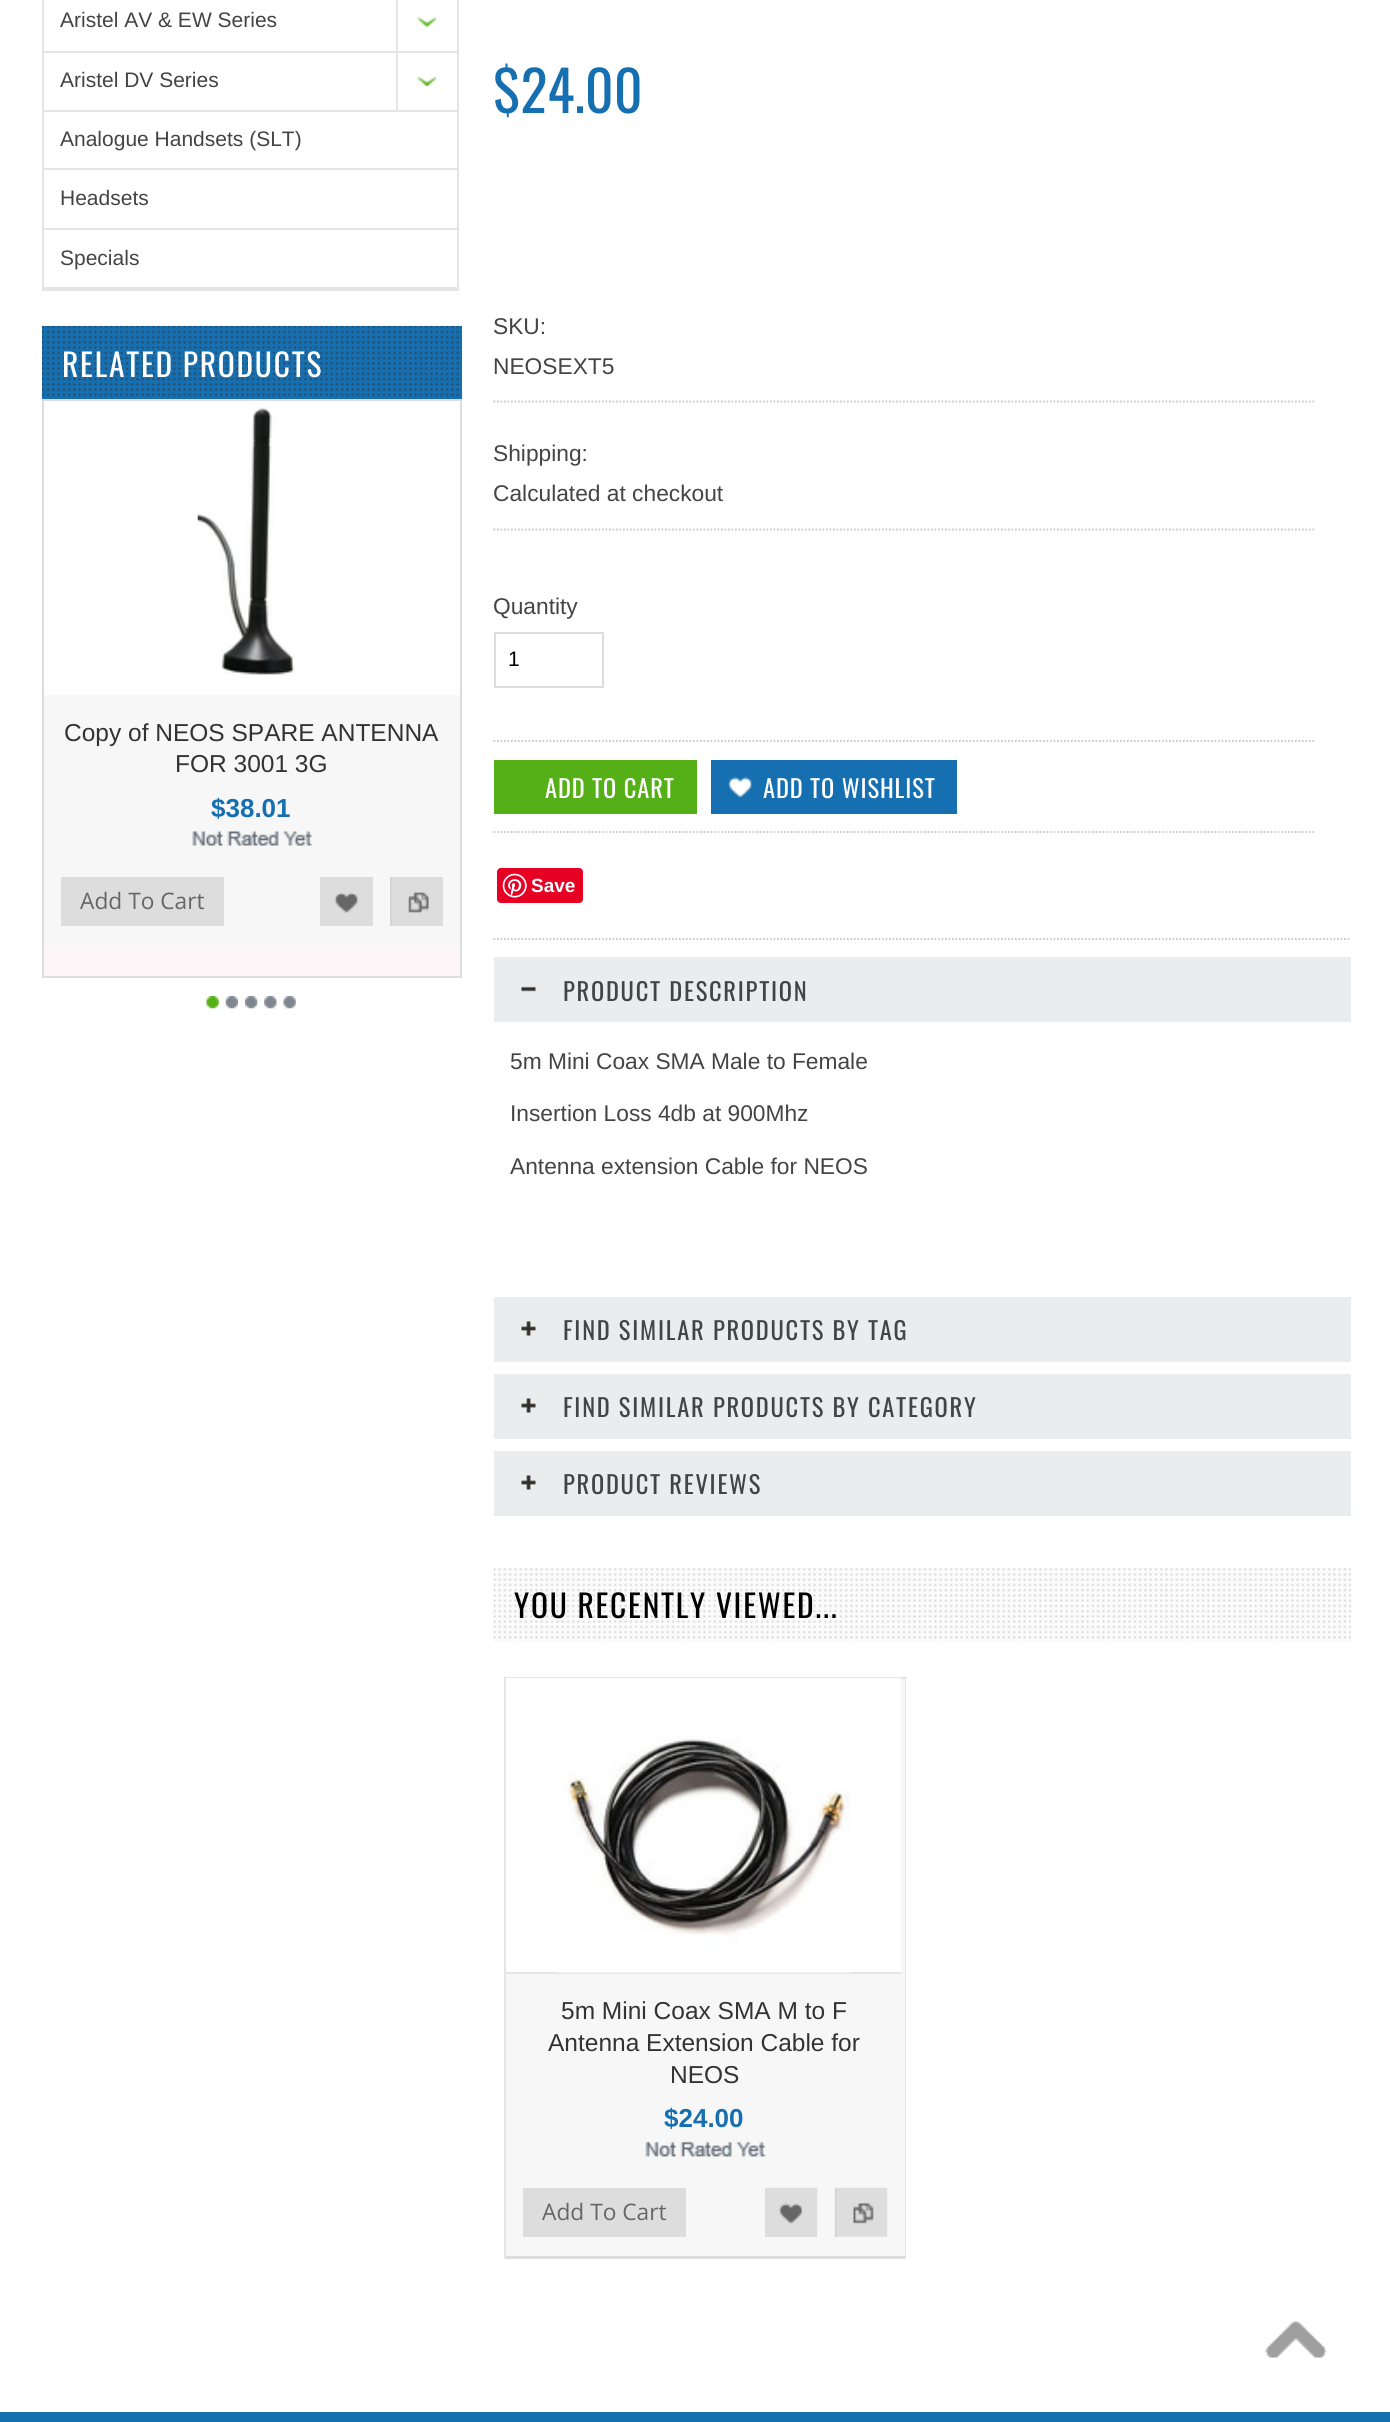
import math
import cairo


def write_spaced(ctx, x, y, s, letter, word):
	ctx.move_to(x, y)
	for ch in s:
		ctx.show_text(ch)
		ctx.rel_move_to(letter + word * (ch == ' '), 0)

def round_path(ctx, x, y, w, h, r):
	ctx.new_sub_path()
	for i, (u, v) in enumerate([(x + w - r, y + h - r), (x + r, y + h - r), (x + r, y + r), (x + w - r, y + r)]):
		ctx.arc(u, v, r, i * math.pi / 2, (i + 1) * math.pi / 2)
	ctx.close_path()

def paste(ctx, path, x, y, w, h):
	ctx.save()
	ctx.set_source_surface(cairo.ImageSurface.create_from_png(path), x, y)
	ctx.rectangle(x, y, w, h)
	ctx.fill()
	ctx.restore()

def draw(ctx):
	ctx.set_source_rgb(1, 1, 1)
	ctx.paint()
	ctx.rectangle(43, -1, 415, 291)
	ctx.set_source_rgb(0.898, 0.898, 0.898)
	ctx.stroke()
	ctx.rectangle(44, 51, 413, 2)
	ctx.fill()
	ctx.select_font_face('Liberation Sans')
	ctx.set_font_size(21)
	ctx.set_source_rgb(0.267, 0.267, 0.267)
	ctx.move_to(60, 27)
	ctx.show_text('Aristel AV & EW Series')
	paste(ctx, 'media/1.png', 418, 17, 18, 10)
	ctx.set_source_rgb(0.898, 0.898, 0.898)
	ctx.rectangle(396, 0, 2, 53)
	ctx.fill()
	ctx.rectangle(44, 110, 413, 2)
	ctx.fill()
	ctx.set_source_rgb(0.267, 0.267, 0.267)
	ctx.move_to(60, 87)
	ctx.show_text('Aristel DV Series')
	paste(ctx, 'media/2.png', 418, 76, 18, 10)
	ctx.set_source_rgb(0.898, 0.898, 0.898)
	ctx.rectangle(396, 53, 2, 59)
	ctx.fill()
	ctx.rectangle(44, 168, 413, 2)
	ctx.fill()
	ctx.set_source_rgb(0.267, 0.267, 0.267)
	ctx.move_to(60, 146)
	ctx.show_text('Analogue Handsets (SLT)')
	ctx.set_source_rgb(0.898, 0.898, 0.898)
	ctx.rectangle(44, 228, 413, 2)
	ctx.fill()
	ctx.set_source_rgb(0.267, 0.267, 0.267)
	ctx.move_to(60, 205)
	ctx.show_text('Headsets')
	ctx.set_source_rgb(0.898, 0.898, 0.898)
	ctx.rectangle(44, 287, 413, 2)
	ctx.fill()
	ctx.set_source_rgb(0.267, 0.267, 0.267)
	ctx.move_to(60, 265)
	ctx.show_text('Specials')
	ctx.set_source_rgb(0.086, 0.435, 0.69)
	ctx.rectangle(42, 326, 420, 73)
	ctx.fill()
	paste(ctx, 'media/3.png', 42, 325, 420, 74)
	ctx.select_font_face('Oswald')
	ctx.set_font_size(31.5)
	ctx.set_source_rgb(1, 1, 1)
	write_spaced(ctx, 62, 377, 'RELATED PRODUCTS', 1.75, 0)
	ctx.set_source_rgb(0.988, 0.961, 0.969)
	ctx.rectangle(44, 945, 416, 31)
	ctx.fill()
	ctx.rectangle(43, 400, 418, 577)
	ctx.set_source_rgb(0.867, 0.867, 0.867)
	ctx.stroke()
	ctx.set_source_rgb(0.965, 0.965, 0.965)
	ctx.rectangle(44, 695, 416, 250)
	ctx.fill()
	paste(ctx, 'media/4.png', 197, 407, 98, 268)
	ctx.select_font_face('Liberation Sans')
	ctx.set_font_size(24.5)
	ctx.set_source_rgb(0.2, 0.2, 0.2)
	ctx.move_to(64, 741)
	ctx.show_text('Copy of NEOS SPARE ANTENNA')
	ctx.move_to(175, 772)
	ctx.show_text('FOR 3001 3G')
	ctx.select_font_face('Liberation Sans', cairo.FONT_SLANT_NORMAL, cairo.FONT_WEIGHT_BOLD)
	ctx.set_font_size(26)
	ctx.set_source_rgb(0.086, 0.435, 0.69)
	ctx.move_to(211, 817)
	ctx.show_text('$38.01')
	paste(ctx, 'media/5.png', 192, 831, 120, 15)
	ctx.set_source_rgb(0.867, 0.867, 0.867)
	ctx.rectangle(61, 877, 163, 49)
	ctx.fill()
	ctx.select_font_face('Open Sans')
	ctx.set_font_size(22.75)
	ctx.set_source_rgb(0.4, 0.4, 0.4)
	ctx.move_to(80, 909)
	ctx.show_text('Add To Cart')
	ctx.set_source_rgb(0.867, 0.867, 0.867)
	ctx.rectangle(320, 877, 53, 49)
	ctx.fill()
	paste(ctx, 'media/6.png', 334, 892, 25, 21)
	ctx.rectangle(392, 877, 51, 49)
	ctx.fill()
	paste(ctx, 'media/7.png', 408, 892, 21, 21)
	ctx.set_source_rgb(0.839, 0.839, 0.839)
	ctx.rectangle(390, 877, 2, 49)
	ctx.fill()
	paste(ctx, 'media/8.png', 206, 996, 13, 13)
	paste(ctx, 'media/9.png', 225, 996, 13, 13)
	paste(ctx, 'media/10.png', 245, 996, 13, 13)
	paste(ctx, 'media/11.png', 264, 996, 13, 13)
	paste(ctx, 'media/12.png', 283, 996, 13, 13)
	ctx.select_font_face('Oswald')
	ctx.set_font_size(56)
	ctx.set_source_rgb(0.086, 0.435, 0.69)
	ctx.move_to(493, 113)
	ctx.show_text('$24.00')
	ctx.new_path()
	ctx.move_to(493.5, 401.5)
	ctx.line_to(1316, 401.5)
	ctx.set_source_rgb(0.784, 0.784, 0.784)
	ctx.set_line_width(1.8)
	ctx.set_dash([1.75, 1.75])
	ctx.stroke()
	ctx.select_font_face('Liberation Sans')
	ctx.set_font_size(22.75)
	ctx.set_source_rgb(0.267, 0.267, 0.267)
	ctx.move_to(493, 334)
	ctx.show_text('SKU:')
	ctx.move_to(493, 374)
	ctx.show_text('NEOSEXT5')
	ctx.new_path()
	ctx.move_to(493.5, 529.5)
	ctx.line_to(1316, 529.5)
	ctx.set_source_rgb(0.784, 0.784, 0.784)
	ctx.stroke()
	ctx.set_source_rgb(0.267, 0.267, 0.267)
	ctx.move_to(493, 461)
	ctx.show_text('Shipping:')
	ctx.move_to(493, 501)
	ctx.show_text('Calculated at checkout')
	ctx.new_path()
	ctx.move_to(493.5, 832)
	ctx.line_to(1316, 832)
	ctx.set_source_rgb(0.784, 0.784, 0.784)
	ctx.stroke()
	ctx.new_path()
	ctx.move_to(493.5, 741)
	ctx.line_to(1316, 741)
	ctx.stroke()
	ctx.set_source_rgb(0.267, 0.267, 0.267)
	ctx.move_to(493, 614)
	ctx.show_text('Quantity')
	ctx.rectangle(495, 633, 108, 54)
	ctx.set_source_rgb(0.867, 0.867, 0.867)
	ctx.set_line_width(2)
	ctx.set_dash([])
	ctx.stroke()
	ctx.set_font_size(21)
	ctx.set_source_rgb(0, 0, 0)
	ctx.move_to(508, 666)
	ctx.show_text('1')
	ctx.set_source_rgb(0.329, 0.69, 0.086)
	ctx.rectangle(494, 760, 203, 54)
	ctx.fill()
	ctx.select_font_face('Oswald')
	ctx.set_font_size(24.5)
	ctx.set_source_rgb(1, 1, 1)
	write_spaced(ctx, 545, 798, 'ADD TO CART', 0.9, 0)
	ctx.set_source_rgb(0.086, 0.435, 0.69)
	ctx.rectangle(711, 760, 246, 54)
	ctx.fill()
	paste(ctx, 'media/13.png', 728, 777, 25, 20)
	ctx.set_source_rgb(1, 1, 1)
	write_spaced(ctx, 763, 798, 'ADD TO WISHLIST', 0.9, 0)
	ctx.new_path()
	ctx.move_to(493.5, 939)
	ctx.line_to(1351, 939)
	ctx.set_source_rgb(0.784, 0.784, 0.784)
	ctx.set_line_width(1.8)
	ctx.set_dash([1.75, 1.75])
	ctx.stroke()
	ctx.set_source_rgb(0.902, 0, 0.137)
	round_path(ctx, 497, 868, 86, 35, 4)
	ctx.fill()
	paste(ctx, 'media/14.png', 502, 873, 25, 25)
	ctx.select_font_face('Liberation Sans', cairo.FONT_SLANT_NORMAL, cairo.FONT_WEIGHT_BOLD)
	ctx.set_font_size(19)
	ctx.set_source_rgb(1, 1, 1)
	ctx.move_to(531, 892)
	ctx.show_text('Save')
	ctx.set_source_rgb(0.918, 0.925, 0.933)
	ctx.rectangle(494, 957, 857, 65)
	ctx.fill()
	paste(ctx, 'media/15.png', 521, 986, 15, 6)
	ctx.select_font_face('Oswald')
	ctx.set_font_size(24.5)
	ctx.set_source_rgb(0.267, 0.267, 0.267)
	write_spaced(ctx, 563, 1001, 'PRODUCT DESCRIPTION', 1.75, 0)
	ctx.select_font_face('Liberation Sans')
	ctx.set_font_size(22.75)
	for x, y, s in [
		(510, 1069, '5m Mini Coax SMA Male to Female'),
		(510, 1121, 'Insertion Loss 4db at 900Mhz'),
		(510, 1174, 'Antenna extension Cable for NEOS'),
	]:
		ctx.move_to(x, y)
		ctx.show_text(s)
	ctx.set_source_rgb(0.918, 0.925, 0.933)
	ctx.rectangle(494, 1297, 857, 65)
	ctx.fill()
	paste(ctx, 'media/16.png', 521, 1321, 15, 15)
	ctx.select_font_face('Oswald')
	ctx.set_font_size(24.5)
	ctx.set_source_rgb(0.267, 0.267, 0.267)
	write_spaced(ctx, 563, 1340, 'FIND SIMILAR PRODUCTS BY TAG', 1.75, 0)
	ctx.set_source_rgb(0.918, 0.925, 0.933)
	ctx.rectangle(494, 1374, 857, 65)
	ctx.fill()
	paste(ctx, 'media/16.png', 521, 1398, 15, 15)
	ctx.set_source_rgb(0.267, 0.267, 0.267)
	write_spaced(ctx, 563, 1417, 'FIND SIMILAR PRODUCTS BY CATEGORY', 1.75, 0)
	ctx.set_source_rgb(0.918, 0.925, 0.933)
	ctx.rectangle(494, 1451, 857, 65)
	ctx.fill()
	paste(ctx, 'media/16.png', 521, 1475, 15, 15)
	ctx.set_source_rgb(0.267, 0.267, 0.267)
	write_spaced(ctx, 563, 1494, 'PRODUCT REVIEWS', 1.75, 0)
	ctx.set_source_rgb(0.984, 0.984, 0.984)
	ctx.rectangle(494, 1568, 857, 74)
	ctx.fill()
	paste(ctx, 'media/17.png', 493, 1568, 858, 74)
	ctx.set_font_size(31.5)
	ctx.set_source_rgb(0, 0, 0)
	write_spaced(ctx, 514, 1618, 'YOU RECENTLY VIEWED...', 1.75, 0)
	ctx.set_source_rgb(0.965, 0.965, 0.965)
	ctx.rectangle(506, 1679, 399, 577)
	ctx.fill()
	ctx.set_source_rgb(0.898, 0.898, 0.898)
	ctx.rectangle(504, 1677, 403, 2)
	ctx.fill()
	ctx.new_path()
	ctx.move_to(906, 1676)
	ctx.line_to(906, 2259)
	ctx.line_to(905, 2256)
	ctx.line_to(905, 1678)
	ctx.close_path()
	ctx.fill()
	ctx.set_source_rgb(0.867, 0.867, 0.867)
	ctx.new_path()
	ctx.move_to(906, 2259)
	ctx.line_to(504, 2259)
	ctx.line_to(506, 2256)
	ctx.line_to(905, 2256)
	ctx.close_path()
	ctx.fill()
	ctx.set_source_rgb(0.898, 0.898, 0.898)
	ctx.new_path()
	ctx.move_to(504, 2259)
	ctx.line_to(504, 1676)
	ctx.line_to(506, 1678)
	ctx.line_to(506, 2256)
	ctx.close_path()
	ctx.fill()
	ctx.set_source_rgb(1, 1, 1)
	ctx.rectangle(506, 1678, 395, 294)
	ctx.fill()
	ctx.set_source_rgb(0.898, 0.898, 0.898)
	ctx.rectangle(506, 1972, 395, 2)
	ctx.fill()
	paste(ctx, 'media/18.png', 556, 1736, 295, 237)
	ctx.select_font_face('Liberation Sans')
	ctx.set_font_size(24.5)
	ctx.set_source_rgb(0.2, 0.2, 0.2)
	for x, y, s in [
		(561, 2019, '5m Mini Coax SMA M to F'),
		(548, 2051, 'Antenna Extension Cable for'),
		(670, 2083, 'NEOS'),
	]:
		ctx.move_to(x, y)
		ctx.show_text(s)
	ctx.select_font_face('Liberation Sans', cairo.FONT_SLANT_NORMAL, cairo.FONT_WEIGHT_BOLD)
	ctx.set_font_size(26)
	ctx.set_source_rgb(0.086, 0.435, 0.69)
	ctx.move_to(664, 2127)
	ctx.show_text('$24.00')
	paste(ctx, 'media/19.png', 645, 2141, 121, 16)
	ctx.set_source_rgb(0.867, 0.867, 0.867)
	ctx.rectangle(523, 2188, 163, 49)
	ctx.fill()
	ctx.select_font_face('Open Sans')
	ctx.set_font_size(22.75)
	ctx.set_source_rgb(0.4, 0.4, 0.4)
	ctx.move_to(542, 2220)
	ctx.show_text('Add To Cart')
	ctx.set_source_rgb(0.867, 0.867, 0.867)
	ctx.rectangle(765, 2188, 52, 49)
	ctx.fill()
	paste(ctx, 'media/20.png', 767, 2187, 51, 50)
	paste(ctx, 'media/21.png', 834, 2187, 54, 50)
	ctx.set_source_rgb(0.839, 0.839, 0.839)
	ctx.rectangle(835, 2188, 2, 49)
	ctx.fill()
	paste(ctx, 'media/22.png', 1265, 2321, 62, 37)
	ctx.set_source_rgb(0.086, 0.435, 0.69)
	ctx.rectangle(0, 2412, 1390, 10)
	ctx.fill()


surface = cairo.ImageSurface(cairo.FORMAT_RGB24, 1390, 2422)
ctx = cairo.Context(surface)
options = cairo.FontOptions()
options.set_hint_metrics(cairo.HINT_METRICS_OFF)
options.set_hint_style(cairo.HINT_STYLE_NONE)
ctx.set_font_options(options)
ctx.set_miter_limit(4)
draw(ctx)
surface.write_to_png('image.png')
